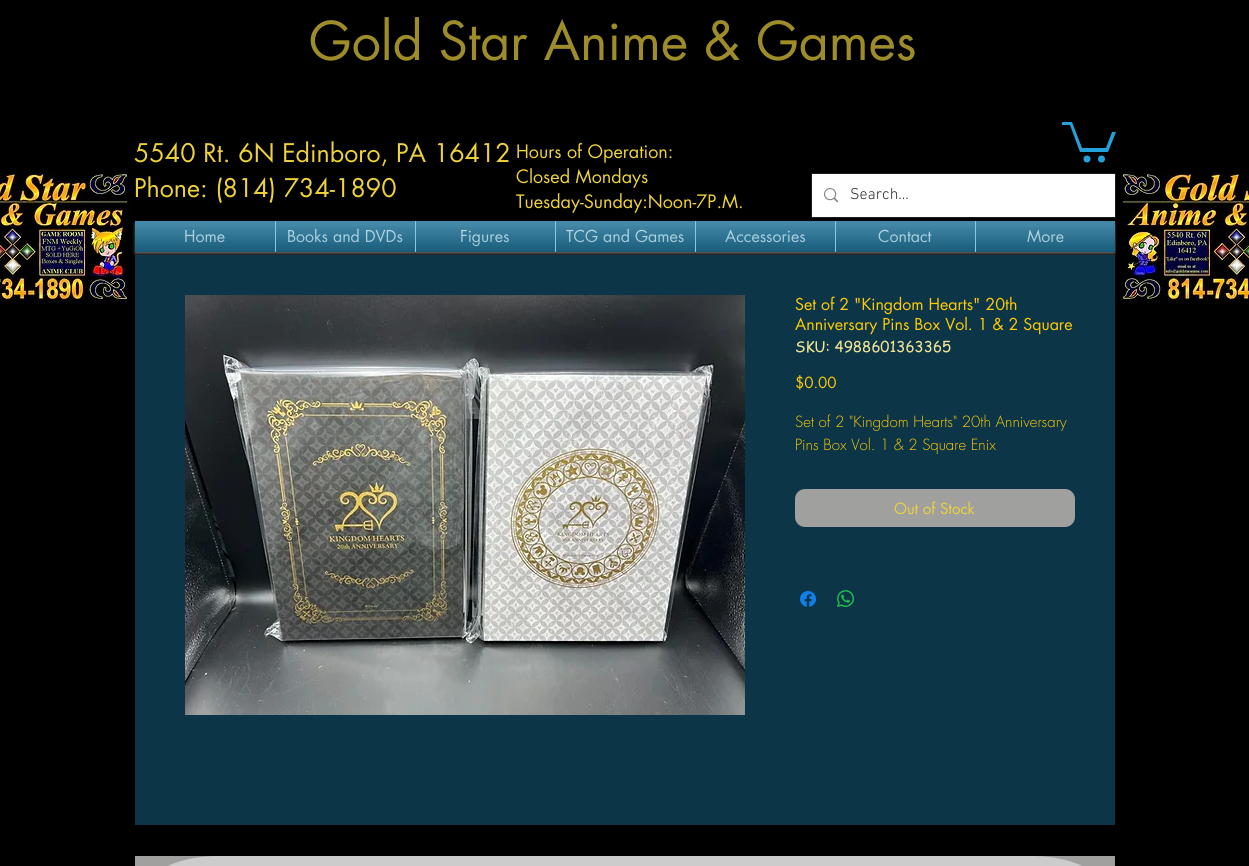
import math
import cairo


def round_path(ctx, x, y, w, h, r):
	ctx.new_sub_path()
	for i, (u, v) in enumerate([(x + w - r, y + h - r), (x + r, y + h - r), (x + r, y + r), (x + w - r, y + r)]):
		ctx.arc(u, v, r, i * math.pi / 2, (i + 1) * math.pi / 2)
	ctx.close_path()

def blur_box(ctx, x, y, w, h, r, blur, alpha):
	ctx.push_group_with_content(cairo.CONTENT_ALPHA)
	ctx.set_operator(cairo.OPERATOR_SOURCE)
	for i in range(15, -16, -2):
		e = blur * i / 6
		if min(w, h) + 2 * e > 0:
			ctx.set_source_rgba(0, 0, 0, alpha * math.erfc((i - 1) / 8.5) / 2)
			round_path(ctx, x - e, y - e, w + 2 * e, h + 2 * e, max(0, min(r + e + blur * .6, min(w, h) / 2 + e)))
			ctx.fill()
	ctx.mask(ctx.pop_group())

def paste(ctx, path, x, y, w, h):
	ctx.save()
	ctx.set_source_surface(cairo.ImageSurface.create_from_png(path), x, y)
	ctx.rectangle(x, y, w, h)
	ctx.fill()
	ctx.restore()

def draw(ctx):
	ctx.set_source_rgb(0, 0, 0)
	ctx.paint()
	ctx.select_font_face('futura')
	ctx.set_font_size(52)
	ctx.set_source_rgb(0.62, 0.549, 0.157)
	ctx.move_to(309, 60)
	ctx.show_text('Gold Star Anime & Games')
	paste(ctx, 'media/1.png', 0, 167, 132, 137)
	ctx.set_font_size(25)
	ctx.set_source_rgb(0.929, 0.824, 0.231)
	ctx.move_to(134, 162)
	ctx.show_text('5540 Rt. 6N Edinboro, PA 16412')
	ctx.move_to(134, 197)
	ctx.show_text('Phone: (814) 734-1890')
	ctx.set_font_size(18)
	for x, y, s in [
		(516, 158, 'Hours of Operation:'),
		(516, 183, 'Closed Mondays'),
		(516, 208, 'Tuesday-Sunday:Noon-7P.M.'),
	]:
		ctx.move_to(x, y)
		ctx.show_text(s)
	ctx.rectangle(811.5, 173.5, 304, 44)
	ctx.set_source_rgb(0.11, 0.11, 0.11)
	ctx.set_line_width(1)
	ctx.stroke()
	ctx.set_source_rgb(1, 1, 1)
	ctx.rectangle(812, 174, 303, 43)
	ctx.fill()
	paste(ctx, 'media/2.png', 824, 188, 14, 15)
	ctx.select_font_face('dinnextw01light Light')
	ctx.set_font_size(16)
	ctx.set_source_rgb(0.184, 0.18, 0.18)
	ctx.move_to(850, 199)
	ctx.show_text('Search...')
	ctx.set_source_rgb(0.137, 0.635, 0.851)
	ctx.new_path()
	ctx.move_to(1116, 132)
	ctx.line_to(1108, 152)
	ctx.line_to(1080, 152)
	ctx.line_to(1070, 125)
	ctx.line_to(1062, 125)
	ctx.line_to(1062, 122)
	ctx.line_to(1072, 122)
	ctx.line_to(1082, 148)
	ctx.line_to(1106, 148)
	ctx.line_to(1112, 132)
	ctx.fill()
	ctx.arc(1101.5, 159, 3.5, 0, 2 * math.pi)
	ctx.fill()
	ctx.arc(1087, 159, 3.5, 0, 2 * math.pi)
	ctx.fill()
	ctx.set_source_rgb(0.635, 0.62, 0.62)
	blur_box(ctx, 135, 223, 980, 31, 0, 1.5, 0.6)
	paste(ctx, 'media/3.png', 1116, 167, 133, 136)
	ctx.set_source_rgb(0.09, 0.424, 0.569)
	ctx.rectangle(135, 221, 140, 31)
	ctx.fill()
	ctx.select_font_face('futura')
	ctx.set_source_rgb(0.686, 0.871, 0.949)
	ctx.move_to(184, 242)
	ctx.show_text('Home')
	paste(ctx, 'media/4.png', 135, 221, 140, 31)
	paste(ctx, 'media/5.png', 135, 227, 140, 25)
	ctx.set_source_rgb(0.09, 0.424, 0.569)
	ctx.rectangle(276, 221, 139, 31)
	ctx.fill()
	ctx.set_source_rgb(0.522, 0.788, 0.902)
	ctx.rectangle(275, 221, 1, 31)
	ctx.fill()
	ctx.set_source_rgb(0.686, 0.871, 0.949)
	ctx.move_to(287, 242)
	ctx.show_text('Books and DVDs')
	paste(ctx, 'media/6.png', 276, 221, 139, 31)
	paste(ctx, 'media/7.png', 276, 227, 139, 25)
	ctx.set_source_rgb(0.09, 0.424, 0.569)
	ctx.rectangle(416, 221, 139, 31)
	ctx.fill()
	ctx.set_source_rgb(0.522, 0.788, 0.902)
	ctx.rectangle(415, 221, 1, 31)
	ctx.fill()
	ctx.set_source_rgb(0.686, 0.871, 0.949)
	ctx.move_to(460, 242)
	ctx.show_text('Figures')
	paste(ctx, 'media/8.png', 416, 221, 139, 31)
	paste(ctx, 'media/9.png', 416, 227, 139, 25)
	ctx.set_source_rgb(0.09, 0.424, 0.569)
	ctx.rectangle(556, 221, 139, 31)
	ctx.fill()
	ctx.set_source_rgb(0.522, 0.788, 0.902)
	ctx.rectangle(555, 221, 1, 31)
	ctx.fill()
	ctx.set_source_rgb(0.686, 0.871, 0.949)
	ctx.move_to(566, 242)
	ctx.show_text('TCG and Games')
	paste(ctx, 'media/10.png', 556, 221, 139, 31)
	paste(ctx, 'media/11.png', 556, 227, 139, 25)
	ctx.set_source_rgb(0.09, 0.424, 0.569)
	ctx.rectangle(696, 221, 139, 31)
	ctx.fill()
	ctx.set_source_rgb(0.522, 0.788, 0.902)
	ctx.rectangle(695, 221, 1, 31)
	ctx.fill()
	ctx.set_source_rgb(0.686, 0.871, 0.949)
	ctx.move_to(725, 242)
	ctx.show_text('Accessories')
	paste(ctx, 'media/12.png', 696, 221, 139, 31)
	paste(ctx, 'media/13.png', 696, 227, 139, 25)
	ctx.set_source_rgb(0.09, 0.424, 0.569)
	ctx.rectangle(836, 221, 139, 31)
	ctx.fill()
	ctx.set_source_rgb(0.522, 0.788, 0.902)
	ctx.rectangle(835, 221, 1, 31)
	ctx.fill()
	ctx.set_source_rgb(0.686, 0.871, 0.949)
	ctx.move_to(878, 242)
	ctx.show_text('Contact')
	paste(ctx, 'media/14.png', 836, 221, 139, 31)
	paste(ctx, 'media/15.png', 836, 227, 139, 25)
	ctx.set_source_rgb(0.09, 0.424, 0.569)
	ctx.rectangle(976, 221, 139, 31)
	ctx.fill()
	ctx.set_source_rgb(0.522, 0.788, 0.902)
	ctx.rectangle(975, 221, 1, 31)
	ctx.fill()
	ctx.set_source_rgb(0.686, 0.871, 0.949)
	ctx.move_to(1027, 242)
	ctx.show_text('More')
	paste(ctx, 'media/16.png', 976, 221, 139, 31)
	paste(ctx, 'media/17.png', 976, 227, 139, 25)
	ctx.set_source_rgb(0.047, 0.212, 0.282)
	ctx.rectangle(135, 255, 980, 570)
	ctx.fill()
	paste(ctx, 'media/18.png', 185, 295, 560, 420)
	ctx.set_source_rgb(1, 0.796, 0.02)
	ctx.move_to(795, 310)
	ctx.show_text('Set of 2 "Kingdom Hearts" 20th')
	ctx.move_to(795, 330)
	ctx.show_text('Anniversary Pins Box Vol. 1 & 2 Square')
	ctx.select_font_face('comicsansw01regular')
	ctx.set_font_size(15)
	ctx.set_source_rgb(0.953, 0.898, 0.596)
	ctx.move_to(795, 352)
	ctx.show_text('SKU: 4988601363365')
	ctx.select_font_face('futura')
	ctx.set_source_rgb(1, 0.796, 0.02)
	ctx.move_to(795, 388)
	ctx.show_text('$0.00')
	ctx.select_font_face('futura Light')
	ctx.move_to(795, 427)
	ctx.show_text('Set of 2 "Kingdom Hearts" 20th Anniversary')
	ctx.move_to(795, 450)
	ctx.show_text('Pins Box Vol. 1 & 2 Square Enix')
	ctx.set_source_rgb(0.627, 0.627, 0.624)
	round_path(ctx, 795, 489, 280, 38, 10)
	ctx.fill()
	ctx.select_font_face('futura')
	ctx.set_source_rgb(0.929, 0.824, 0.231)
	ctx.move_to(894, 514)
	ctx.show_text('Out of Stock')
	paste(ctx, 'media/19.png', 800, 591, 16, 16)
	paste(ctx, 'media/20.png', 837, 590, 17, 17)
	ctx.set_source_rgb(0.627, 0.627, 0.624)
	ctx.rectangle(135, 856, 980, 10)
	ctx.fill()
	ctx.set_source_rgb(0.8, 0.8, 0.8)
	ctx.new_path()
	ctx.move_to(1033, 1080)
	ctx.line_to(217, 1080)
	ctx.curve_to(172, 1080, 135, 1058, 135, 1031)
	ctx.line_to(135, 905)
	ctx.curve_to(135, 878, 172, 856, 217, 856)
	ctx.line_to(1033, 856)
	ctx.curve_to(1078, 856, 1115, 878, 1115, 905)
	ctx.line_to(1115, 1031)
	ctx.curve_to(1115, 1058, 1078, 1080, 1033, 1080)
	ctx.close_path()
	ctx.fill()


surface = cairo.ImageSurface(cairo.FORMAT_RGB24, 1249, 866)
ctx = cairo.Context(surface)
options = cairo.FontOptions()
options.set_hint_metrics(cairo.HINT_METRICS_OFF)
options.set_hint_style(cairo.HINT_STYLE_NONE)
ctx.set_font_options(options)
ctx.set_miter_limit(4)
draw(ctx)
surface.write_to_png('image.png')
